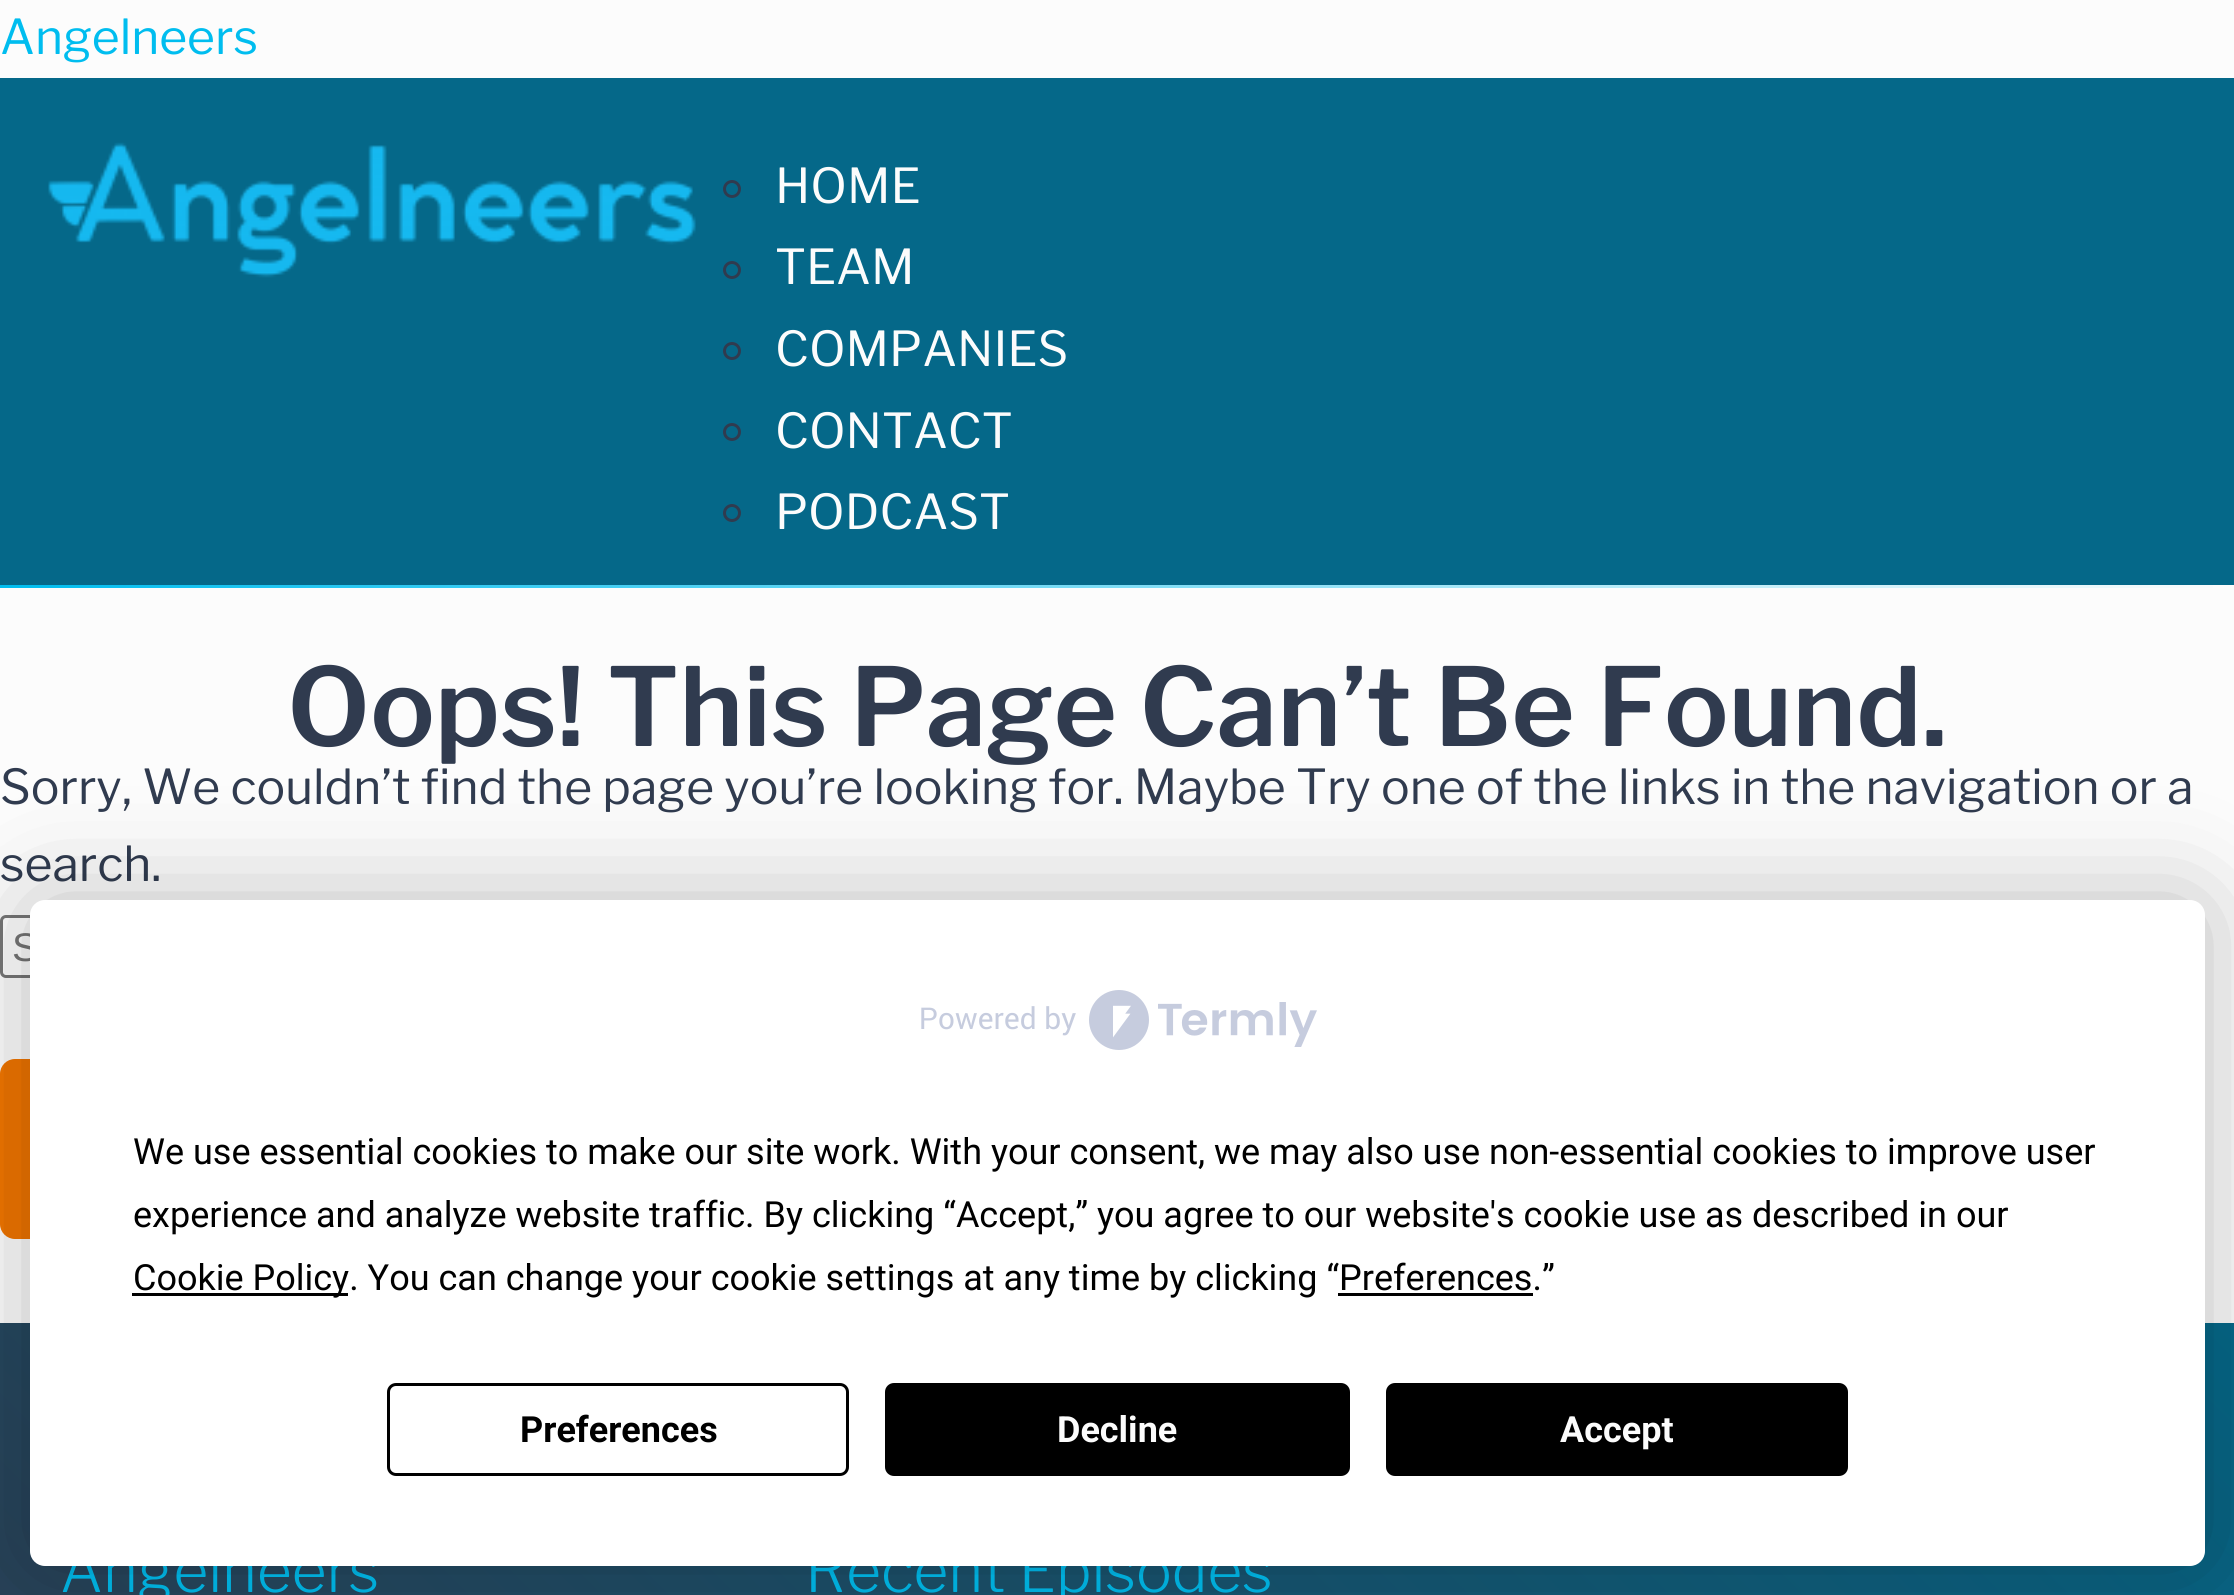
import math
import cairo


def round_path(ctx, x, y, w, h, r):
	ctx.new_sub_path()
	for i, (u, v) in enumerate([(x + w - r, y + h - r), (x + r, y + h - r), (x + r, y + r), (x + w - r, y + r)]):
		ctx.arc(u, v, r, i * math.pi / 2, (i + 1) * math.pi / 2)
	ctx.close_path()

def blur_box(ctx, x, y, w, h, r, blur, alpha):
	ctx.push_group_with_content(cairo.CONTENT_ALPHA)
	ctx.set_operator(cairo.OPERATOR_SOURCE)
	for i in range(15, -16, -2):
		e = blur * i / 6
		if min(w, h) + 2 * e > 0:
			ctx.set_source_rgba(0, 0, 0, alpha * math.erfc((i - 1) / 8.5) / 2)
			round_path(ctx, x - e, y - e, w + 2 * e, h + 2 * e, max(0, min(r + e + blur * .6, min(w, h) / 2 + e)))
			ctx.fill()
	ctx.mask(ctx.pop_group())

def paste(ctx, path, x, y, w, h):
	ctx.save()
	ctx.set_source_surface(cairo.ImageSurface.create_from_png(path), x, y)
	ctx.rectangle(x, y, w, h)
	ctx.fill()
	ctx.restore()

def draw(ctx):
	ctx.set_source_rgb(0.988, 0.988, 0.988)
	ctx.paint()
	ctx.select_font_face('Libre Franklin')
	ctx.set_font_size(48)
	ctx.set_source_rgb(0, 0.741, 0.937)
	ctx.move_to(0, 54)
	ctx.show_text('Angelneers')
	ctx.set_source_rgb(0.02, 0.408, 0.537)
	ctx.rectangle(0, 78, 2234, 507)
	ctx.fill()
	paste(ctx, 'media/1.png', 48, 142, 648, 136)
	ctx.arc(732, 189, 7.5, 0, 2 * math.pi)
	ctx.set_source_rgb(0.188, 0.231, 0.31)
	ctx.set_line_width(3)
	ctx.stroke()
	ctx.set_source_rgb(0.988, 0.988, 0.988)
	ctx.move_to(775, 203)
	ctx.show_text('HOME')
	ctx.new_path()
	ctx.arc(732, 270, 7.5, 0, 2 * math.pi)
	ctx.set_source_rgb(0.188, 0.231, 0.31)
	ctx.stroke()
	ctx.set_source_rgb(0.988, 0.988, 0.988)
	ctx.move_to(775, 284)
	ctx.show_text('TEAM')
	ctx.new_path()
	ctx.arc(732, 351, 7.5, 0, 2 * math.pi)
	ctx.set_source_rgb(0.188, 0.231, 0.31)
	ctx.stroke()
	ctx.set_source_rgb(0.988, 0.988, 0.988)
	ctx.move_to(775, 366)
	ctx.show_text('COMPANIES')
	ctx.new_path()
	ctx.arc(732, 432, 7.5, 0, 2 * math.pi)
	ctx.set_source_rgb(0.188, 0.231, 0.31)
	ctx.stroke()
	ctx.set_source_rgb(0.988, 0.988, 0.988)
	ctx.move_to(775, 448)
	ctx.show_text('CONTACT')
	ctx.new_path()
	ctx.arc(732, 513, 7.5, 0, 2 * math.pi)
	ctx.set_source_rgb(0.188, 0.231, 0.31)
	ctx.stroke()
	ctx.set_source_rgb(0.988, 0.988, 0.988)
	ctx.move_to(775, 529)
	ctx.show_text('PODCAST')
	gradient = cairo.LinearGradient(0, 587, 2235, 586)
	gradient.add_color_stop_rgba(0, 0, 0.741, 0.937, 1)
	gradient.add_color_stop_rgba(1, 0.988, 0.988, 0.988, 1)
	ctx.set_source(gradient)
	ctx.rectangle(0, 585, 2213, 3)
	ctx.fill()
	ctx.select_font_face('Libre Franklin SemiBold')
	ctx.set_font_size(108)
	ctx.set_source_rgb(0.188, 0.231, 0.31)
	ctx.move_to(287, 746)
	ctx.show_text('Oops! This Page Can’t Be Found.')
	ctx.select_font_face('Libre Franklin')
	ctx.set_font_size(48)
	ctx.move_to(0, 804)
	ctx.show_text('Sorry, We couldn’t find the page you’re looking for. Maybe Try one of the links in the navigation or a')
	ctx.move_to(0, 881)
	ctx.show_text('search.')
	ctx.set_source_rgb(1, 1, 1)
	round_path(ctx, 1.5, 916.5, 552, 60, 4.5)
	ctx.fill_preserve()
	ctx.set_source_rgb(0.463, 0.463, 0.463)
	ctx.stroke()
	ctx.select_font_face('Liberation Sans')
	ctx.set_font_size(40)
	ctx.set_source_rgb(0.459, 0.459, 0.459)
	ctx.move_to(12, 961)
	ctx.show_text('S')
	ctx.set_source_rgb(0.941, 0.459, 0)
	round_path(ctx, 0, 1059, 750, 180, 15)
	ctx.fill()
	gradient = cairo.LinearGradient(2059, 1147, 176, 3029)
	gradient.add_color_stop_rgba(0, 0.02, 0.408, 0.537, 1)
	gradient.add_color_stop_rgba(0.8, 0.188, 0.231, 0.31, 1)
	ctx.set_source(gradient)
	ctx.rectangle(0, 1323, 2234, 272)
	ctx.fill()
	ctx.select_font_face('Libre Franklin Light')
	ctx.set_font_size(60)
	ctx.set_source_rgb(0, 0.741, 0.937)
	ctx.move_to(60, 1592)
	ctx.show_text('Angelneers')
	ctx.move_to(805, 1592)
	ctx.show_text('Recent Episodes')
	ctx.set_source_rgb(0, 0, 0)
	blur_box(ctx, 30, 900, 2175, 666, 15, 52.5, 0.25)
	ctx.set_source_rgb(1, 1, 1)
	round_path(ctx, 30, 900, 2175, 666, 15)
	ctx.fill()
	paste(ctx, 'media/2.png', 921, 990, 396, 60)
	ctx.select_font_face('Roboto')
	ctx.set_font_size(36)
	ctx.set_source_rgb(0, 0, 0)
	ctx.move_to(133, 1164)
	ctx.show_text('We use essential cookies to make our site work. With your consent, we may also use non-essential cookies to improve user')
	ctx.move_to(133, 1227)
	ctx.show_text('experience and analyze website traffic. By clicking “Accept,” you agree to our website\'s cookie use as described in our')
	ctx.rectangle(132, 1293, 216, 3)
	ctx.fill()
	ctx.move_to(133, 1290)
	ctx.show_text('Cookie Policy. You can change your cookie settings at any time by clicking “Preferences.”')
	ctx.rectangle(1338, 1293, 195, 3)
	ctx.fill()
	round_path(ctx, 388.5, 1384.5, 459, 90, 7.5)
	ctx.stroke()
	ctx.select_font_face('Roboto', cairo.FONT_SLANT_NORMAL, cairo.FONT_WEIGHT_BOLD)
	ctx.move_to(520, 1442)
	ctx.show_text('Preferences')
	round_path(ctx, 886.5, 1384.5, 462, 90, 7.5)
	ctx.fill_preserve()
	ctx.stroke()
	ctx.set_source_rgb(0.988, 0.988, 0.988)
	ctx.move_to(1057, 1442)
	ctx.show_text('Decline')
	ctx.set_source_rgb(0, 0, 0)
	round_path(ctx, 1387.5, 1384.5, 459, 90, 7.5)
	ctx.fill_preserve()
	ctx.stroke()
	ctx.set_source_rgb(0.988, 0.988, 0.988)
	ctx.move_to(1560, 1442)
	ctx.show_text('Accept')


surface = cairo.ImageSurface(cairo.FORMAT_RGB24, 2234, 1595)
ctx = cairo.Context(surface)
options = cairo.FontOptions()
options.set_hint_metrics(cairo.HINT_METRICS_OFF)
options.set_hint_style(cairo.HINT_STYLE_NONE)
ctx.set_font_options(options)
ctx.set_miter_limit(4)
draw(ctx)
surface.write_to_png('image.png')
